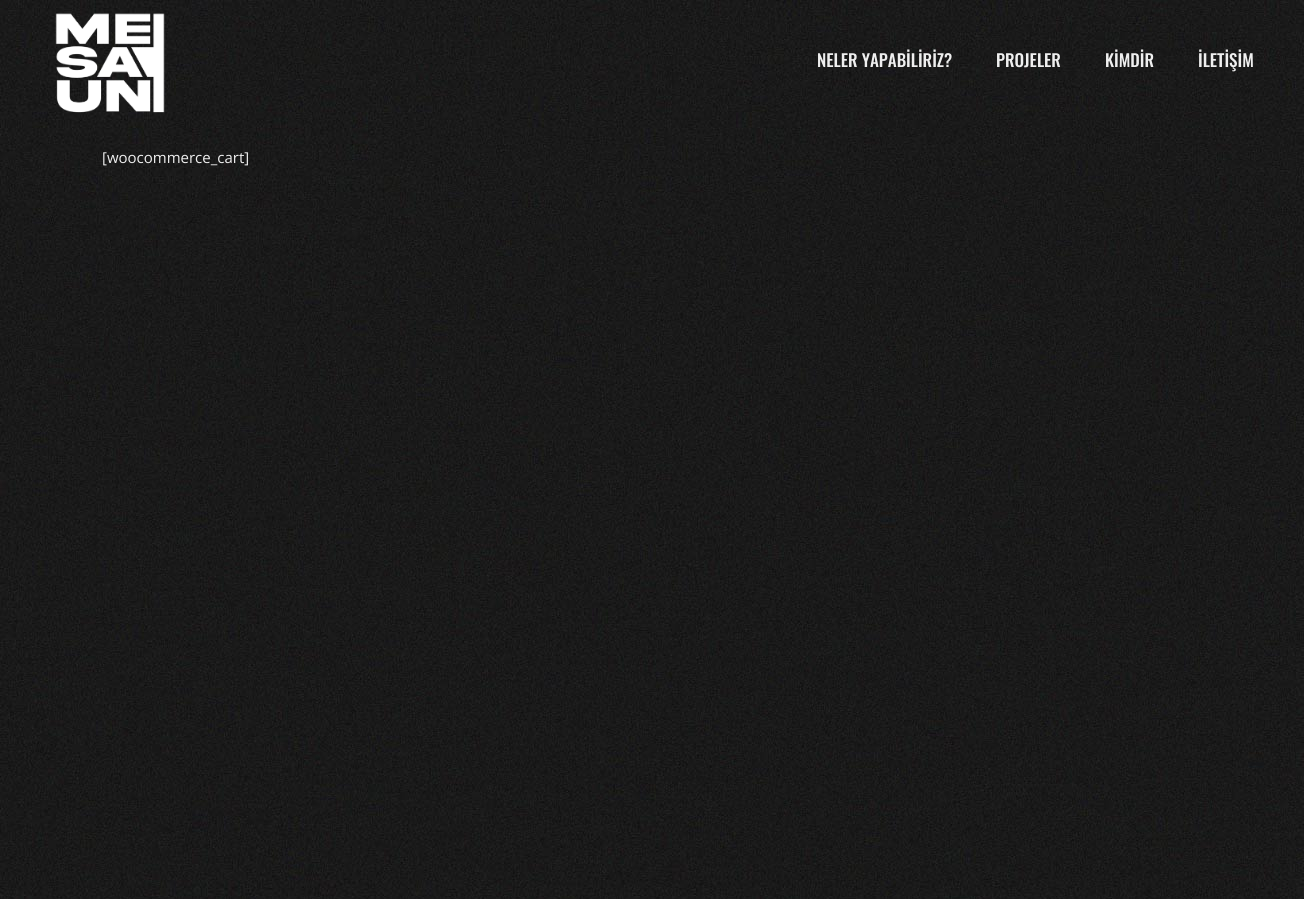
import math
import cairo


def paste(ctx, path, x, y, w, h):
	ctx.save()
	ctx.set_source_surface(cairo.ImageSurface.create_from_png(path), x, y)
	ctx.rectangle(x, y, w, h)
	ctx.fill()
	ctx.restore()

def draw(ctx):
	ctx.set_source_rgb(1, 1, 1)
	ctx.paint()
	paste(ctx, 'media/1.png', 0, 0, 1304, 899)
	paste(ctx, 'media/2.png', 55, 13, 110, 100)
	ctx.select_font_face('Oswald Medium')
	ctx.set_font_size(17)
	ctx.set_source_rgb(0.937, 0.937, 0.937)
	for x, y, s in [
		(817, 67, 'NELER YAPABİLİRİZ?'),
		(996, 67, 'PROJELER'),
		(1105, 67, 'KİMDİR'),
		(1198, 67, 'İLETİŞİM'),
	]:
		ctx.move_to(x, y)
		ctx.show_text(s)
	ctx.select_font_face('Open Sans')
	ctx.set_font_size(15)
	ctx.move_to(102, 163)
	ctx.show_text('[woocommerce_cart]')


surface = cairo.ImageSurface(cairo.FORMAT_RGB24, 1304, 899)
ctx = cairo.Context(surface)
options = cairo.FontOptions()
options.set_hint_metrics(cairo.HINT_METRICS_OFF)
options.set_hint_style(cairo.HINT_STYLE_NONE)
ctx.set_font_options(options)
ctx.set_miter_limit(4)
draw(ctx)
surface.write_to_png('image.png')
